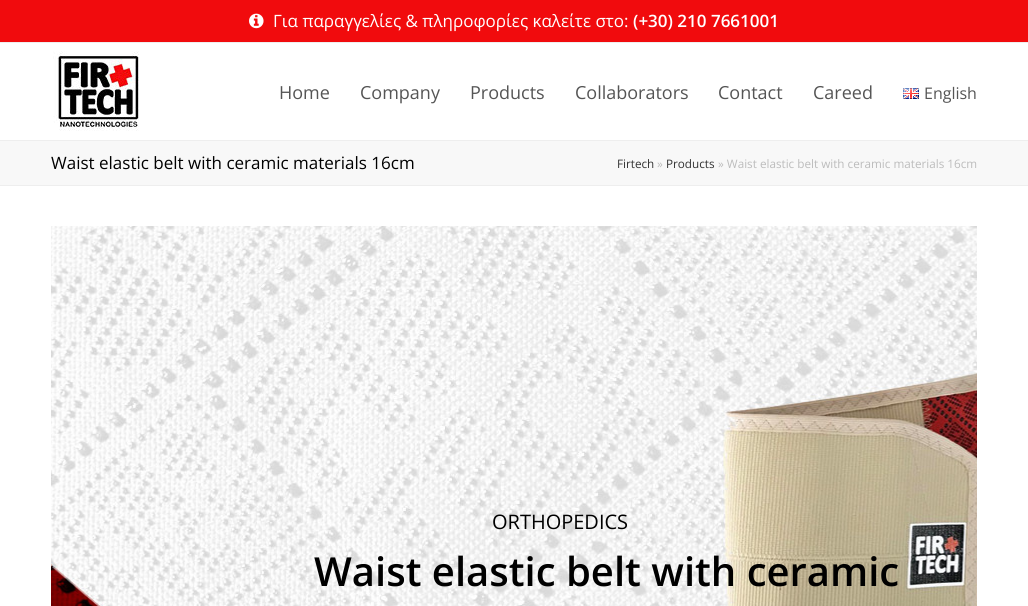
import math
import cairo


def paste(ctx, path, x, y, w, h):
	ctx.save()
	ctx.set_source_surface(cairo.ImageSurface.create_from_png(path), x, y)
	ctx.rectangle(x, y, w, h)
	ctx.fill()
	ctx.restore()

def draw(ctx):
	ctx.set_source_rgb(1, 1, 1)
	ctx.paint()
	ctx.set_source_rgb(0.945, 0.043, 0.051)
	ctx.rectangle(0, 0, 1028, 42)
	ctx.fill()
	ctx.set_source_rgb(0.933, 0.933, 0.933)
	ctx.rectangle(0, 42, 1028, 1)
	ctx.fill()
	paste(ctx, 'media/1.png', 249, 13, 15, 16)
	ctx.select_font_face('Open Sans')
	ctx.set_font_size(17)
	ctx.set_source_rgb(1, 1, 1)
	ctx.move_to(273, 27)
	ctx.show_text('Για παραγγελίες & πληροφορίες καλείτε στο:')
	ctx.select_font_face('Open Sans SemiBold')
	ctx.move_to(633, 27)
	ctx.show_text('(+30) 210 7661001')
	paste(ctx, 'media/2.png', 53, 51, 86, 80)
	ctx.select_font_face('Open Sans')
	ctx.set_font_size(18)
	ctx.set_source_rgb(0.333, 0.333, 0.333)
	for x, y, s in [
		(279, 99, 'Home'),
		(360, 99, 'Company'),
		(470, 99, 'Products'),
		(575, 99, 'Collaborators'),
		(718, 99, 'Contact'),
		(813, 99, 'Careed'),
	]:
		ctx.move_to(x, y)
		ctx.show_text(s)
	paste(ctx, 'media/3.png', 903, 88, 16, 11)
	ctx.set_font_size(16)
	ctx.move_to(924, 99)
	ctx.show_text('English')
	ctx.set_source_rgb(0.969, 0.969, 0.969)
	ctx.rectangle(0, 141, 1028, 44)
	ctx.fill()
	ctx.set_source_rgb(0.933, 0.933, 0.933)
	ctx.rectangle(0, 140, 1028, 1)
	ctx.rectangle(0, 185, 1028, 1)
	ctx.fill()
	ctx.set_font_size(17)
	ctx.set_source_rgb(0, 0, 0)
	ctx.move_to(51, 169)
	ctx.show_text('Waist elastic belt with ceramic materials 16cm')
	ctx.set_font_size(11.7)
	ctx.set_source_rgb(0.2, 0.2, 0.2)
	ctx.move_to(617, 168)
	ctx.show_text('Firtech')
	ctx.set_source_rgb(0.737, 0.737, 0.737)
	ctx.move_to(657, 168)
	ctx.show_text('»')
	ctx.set_source_rgb(0.2, 0.2, 0.2)
	ctx.move_to(666, 168)
	ctx.show_text('Products')
	ctx.set_source_rgb(0.737, 0.737, 0.737)
	ctx.move_to(718, 168)
	ctx.show_text('» Waist elastic belt with ceramic materials 16cm')
	paste(ctx, 'media/4.png', 51, 226, 926, 380)
	ctx.set_font_size(20)
	ctx.set_source_rgb(0, 0, 0)
	ctx.move_to(492, 529)
	ctx.show_text('ORTHOPEDICS')
	ctx.select_font_face('Open Sans SemiBold')
	ctx.set_font_size(40)
	ctx.move_to(314, 586)
	ctx.show_text('Waist elastic belt with ceramic')


surface = cairo.ImageSurface(cairo.FORMAT_RGB24, 1028, 606)
ctx = cairo.Context(surface)
options = cairo.FontOptions()
options.set_hint_metrics(cairo.HINT_METRICS_OFF)
options.set_hint_style(cairo.HINT_STYLE_NONE)
ctx.set_font_options(options)
ctx.set_miter_limit(4)
draw(ctx)
surface.write_to_png('image.png')
